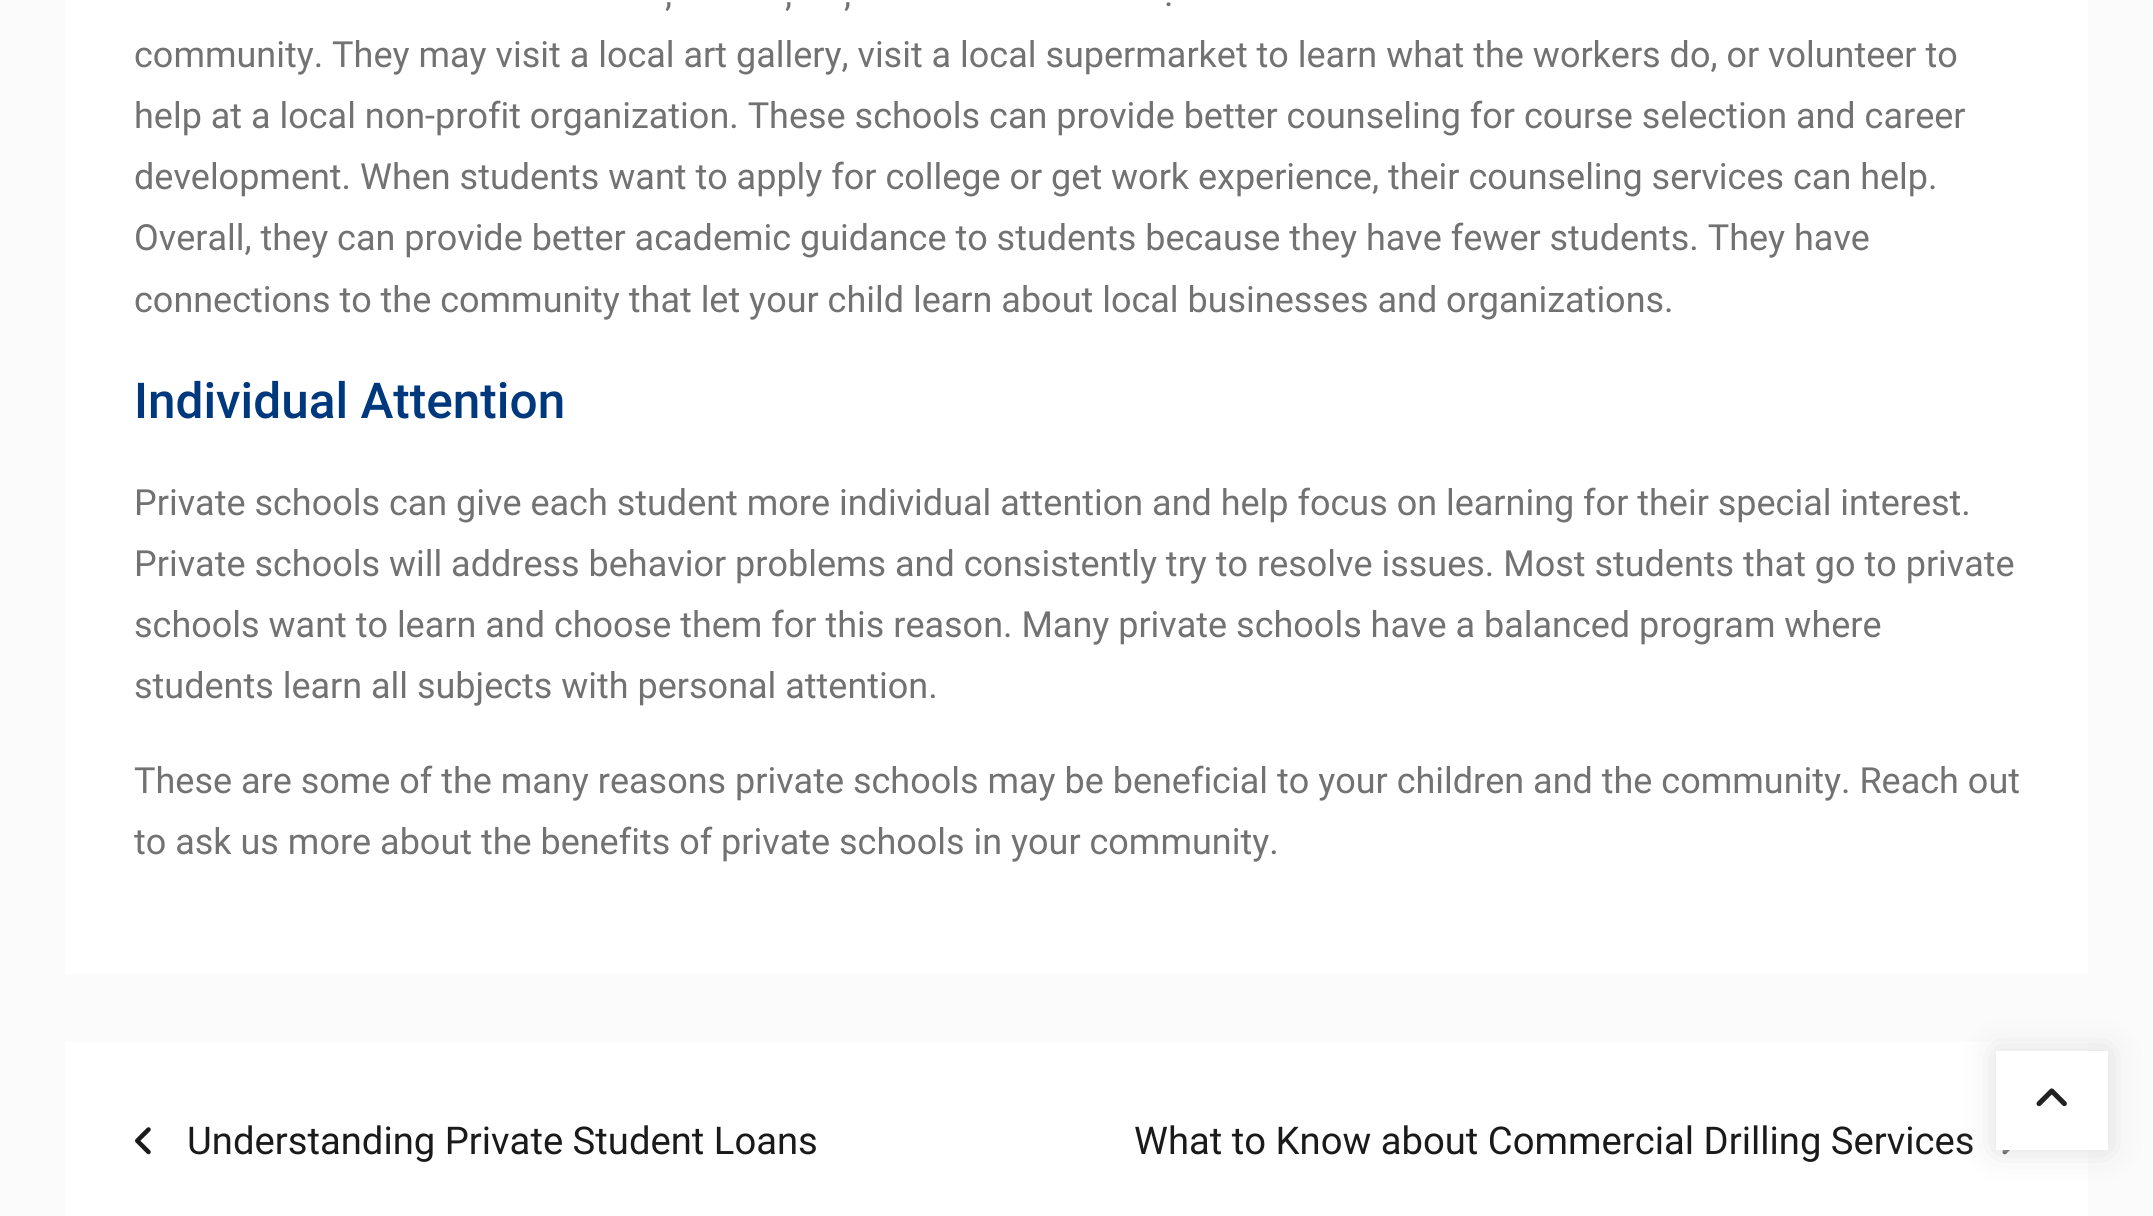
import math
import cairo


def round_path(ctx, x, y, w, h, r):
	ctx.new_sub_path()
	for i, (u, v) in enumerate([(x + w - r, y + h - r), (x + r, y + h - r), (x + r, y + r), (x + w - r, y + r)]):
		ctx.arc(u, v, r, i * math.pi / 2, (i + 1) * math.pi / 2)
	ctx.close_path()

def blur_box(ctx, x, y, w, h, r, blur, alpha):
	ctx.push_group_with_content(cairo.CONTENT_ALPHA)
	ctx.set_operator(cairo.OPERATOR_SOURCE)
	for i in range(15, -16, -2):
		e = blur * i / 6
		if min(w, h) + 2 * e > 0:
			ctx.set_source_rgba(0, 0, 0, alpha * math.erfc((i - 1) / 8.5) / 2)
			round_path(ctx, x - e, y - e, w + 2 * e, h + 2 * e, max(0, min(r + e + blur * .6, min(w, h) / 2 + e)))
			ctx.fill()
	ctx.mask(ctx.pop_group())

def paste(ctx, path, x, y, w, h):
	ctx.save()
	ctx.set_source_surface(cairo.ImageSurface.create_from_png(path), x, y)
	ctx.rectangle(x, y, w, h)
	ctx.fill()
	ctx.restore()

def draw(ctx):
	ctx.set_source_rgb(0.984, 0.984, 0.984)
	ctx.paint()
	ctx.set_source_rgb(1, 1, 1)
	ctx.rectangle(65, 0, 2023, 974)
	ctx.fill()
	ctx.select_font_face('Roboto')
	ctx.set_font_size(36)
	ctx.set_source_rgb(0.447, 0.447, 0.447)
	for x, y, s in [
		(665, 6, ','),
		(785, 6, ','),
		(844, 6, ','),
		(1164, 6, '.'),
		(134, 67, 'community. They may visit a local art gallery, visit a local supermarket to learn what the workers do, or volunteer to'),
		(134, 128, 'help at a local non-profit organization. These schools can provide better counseling for course selection and career'),
		(134, 189, 'development. When students want to apply for college or get work experience, their counseling services can help.'),
		(134, 250, 'Overall, they can provide better academic guidance to students because they have fewer students. They have'),
		(134, 312, 'connections to the community that let your child learn about local businesses and organizations.'),
	]:
		ctx.move_to(x, y)
		ctx.show_text(s)
	ctx.select_font_face('Roboto Medium')
	ctx.set_font_size(49.5)
	ctx.set_source_rgb(0, 0.22, 0.49)
	ctx.move_to(134, 418)
	ctx.show_text('Individual Attention')
	ctx.select_font_face('Roboto')
	ctx.set_font_size(36)
	ctx.set_source_rgb(0.447, 0.447, 0.447)
	for x, y, s in [
		(134, 515, 'Private schools can give each student more individual attention and help focus on learning for their special interest.'),
		(134, 576, 'Private schools will address behavior problems and consistently try to resolve issues. Most students that go to private'),
		(134, 637, 'schools want to learn and choose them for this reason. Many private schools have a balanced program where'),
		(134, 698, 'students learn all subjects with personal attention.'),
		(134, 793, 'These are some of the many reasons private schools may be beneficial to your children and the community. Reach out'),
		(134, 854, 'to ask us more about the benefits of private schools in your community.'),
	]:
		ctx.move_to(x, y)
		ctx.show_text(s)
	ctx.set_source_rgb(1, 1, 1)
	ctx.rectangle(65, 1042, 2023, 174)
	ctx.fill()
	paste(ctx, 'media/1.png', 135, 1127, 16, 28)
	ctx.set_font_size(38.25)
	ctx.set_source_rgb(0.102, 0.102, 0.102)
	ctx.move_to(187, 1154)
	ctx.show_text('Understanding Private Student Loans')
	ctx.move_to(1134, 1154)
	ctx.show_text('What to Know about Commercial Drilling Services')
	paste(ctx, 'media/2.png', 2002, 1150, 8, 5)
	ctx.set_source_rgb(0.867, 0.867, 0.867)
	blur_box(ctx, 1996, 1051, 112, 99, 0, 16, 1)
	ctx.set_source_rgb(1, 1, 1)
	ctx.rectangle(1996, 1051, 112, 99)
	ctx.fill()
	paste(ctx, 'media/3.png', 2036, 1088, 31, 19)


surface = cairo.ImageSurface(cairo.FORMAT_RGB24, 2153, 1216)
ctx = cairo.Context(surface)
options = cairo.FontOptions()
options.set_hint_metrics(cairo.HINT_METRICS_OFF)
options.set_hint_style(cairo.HINT_STYLE_NONE)
ctx.set_font_options(options)
ctx.set_miter_limit(4)
draw(ctx)
surface.write_to_png('image.png')
